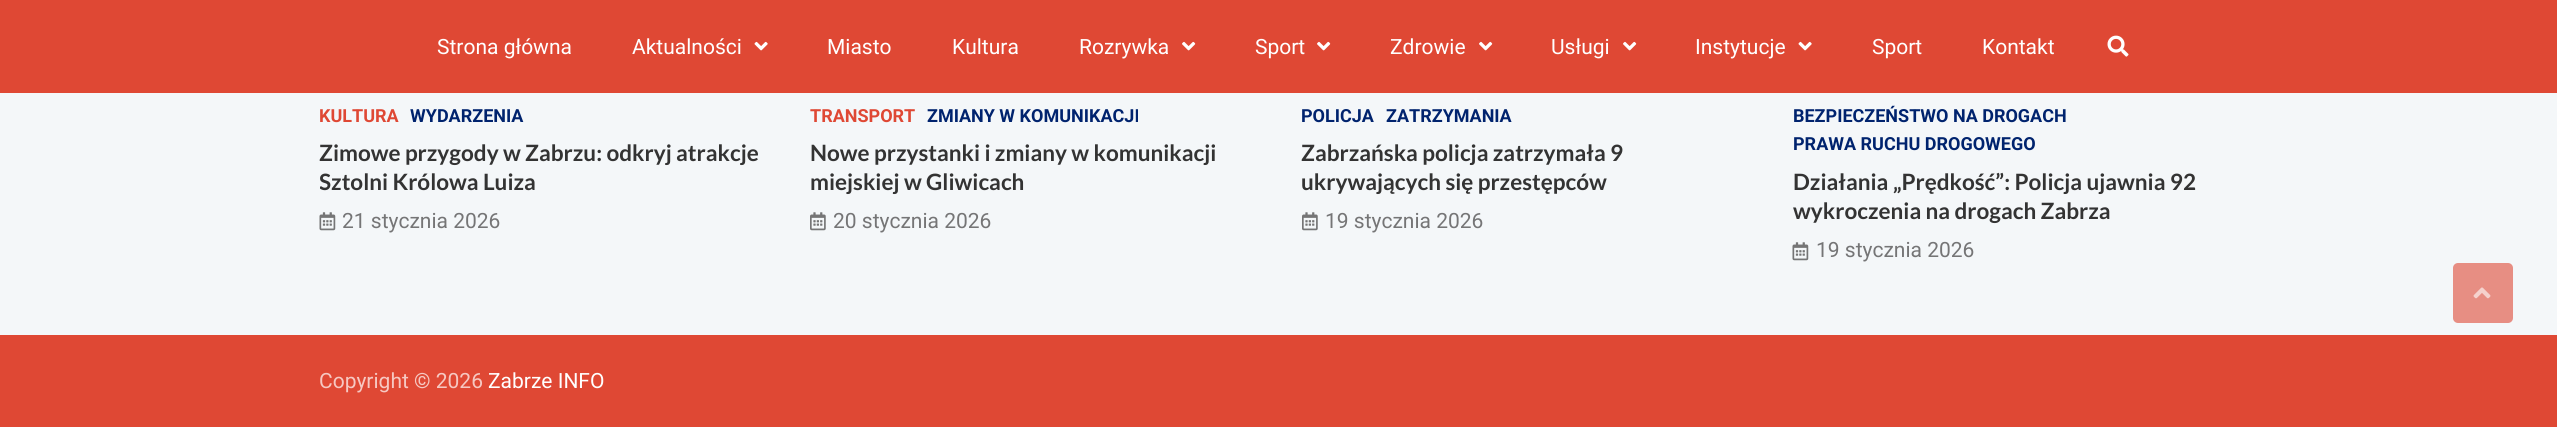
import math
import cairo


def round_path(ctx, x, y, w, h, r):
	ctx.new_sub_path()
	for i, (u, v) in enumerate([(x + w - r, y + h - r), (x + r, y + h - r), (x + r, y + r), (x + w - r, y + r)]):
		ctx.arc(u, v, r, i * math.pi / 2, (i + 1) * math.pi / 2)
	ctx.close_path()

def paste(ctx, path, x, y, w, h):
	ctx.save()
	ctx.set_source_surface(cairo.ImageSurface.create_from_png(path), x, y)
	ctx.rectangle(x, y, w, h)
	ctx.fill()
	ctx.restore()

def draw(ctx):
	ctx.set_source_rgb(0.957, 0.965, 0.976)
	ctx.paint()
	ctx.set_source_rgb(0.875, 0.282, 0.204)
	ctx.rectangle(0, 0, 2557, 93)
	ctx.fill()
	ctx.select_font_face('Roboto')
	ctx.set_font_size(21)
	ctx.set_source_rgb(1, 1, 1)
	ctx.move_to(437, 54)
	ctx.show_text('Strona główna')
	ctx.move_to(632, 54)
	ctx.show_text('Aktualności')
	paste(ctx, 'media/1.png', 754, 41, 14, 10)
	for x, y, s in [
		(827, 54, 'Miasto'),
		(952, 54, 'Kultura'),
		(1079, 54, 'Rozrywka'),
	]:
		ctx.move_to(x, y)
		ctx.show_text(s)
	paste(ctx, 'media/2.png', 1182, 41, 14, 10)
	ctx.move_to(1255, 54)
	ctx.show_text('Sport')
	paste(ctx, 'media/2.png', 1317, 41, 14, 10)
	ctx.move_to(1390, 54)
	ctx.show_text('Zdrowie')
	paste(ctx, 'media/2.png', 1479, 41, 14, 10)
	ctx.move_to(1551, 54)
	ctx.show_text('Usługi')
	paste(ctx, 'media/2.png', 1623, 41, 14, 10)
	ctx.move_to(1695, 54)
	ctx.show_text('Instytucje')
	paste(ctx, 'media/1.png', 1798, 41, 14, 10)
	ctx.move_to(1872, 54)
	ctx.show_text('Sport')
	ctx.move_to(1982, 54)
	ctx.show_text('Kontakt')
	paste(ctx, 'media/3.png', 2107, 35, 22, 22)
	ctx.select_font_face('Roboto', cairo.FONT_SLANT_NORMAL, cairo.FONT_WEIGHT_BOLD)
	ctx.set_font_size(18)
	ctx.set_source_rgb(0.875, 0.282, 0.204)
	ctx.move_to(319, 122)
	ctx.show_text('KULTURA')
	ctx.set_source_rgb(0, 0.137, 0.431)
	ctx.move_to(410, 122)
	ctx.show_text('WYDARZENIA')
	ctx.select_font_face('Lato', cairo.FONT_SLANT_NORMAL, cairo.FONT_WEIGHT_BOLD)
	ctx.set_font_size(22.5)
	ctx.set_source_rgb(0.2, 0.2, 0.2)
	ctx.move_to(319, 161)
	ctx.show_text('Zimowe przygody w Zabrzu: odkryj atrakcje')
	ctx.save()
	ctx.rectangle(320, 138, 445, 59)
	ctx.clip()
	ctx.move_to(319, 190)
	ctx.show_text('Sztolni Królowa Luiza')
	ctx.restore()
	paste(ctx, 'media/4.png', 319, 212, 17, 19)
	ctx.select_font_face('Roboto')
	ctx.set_font_size(21)
	ctx.set_source_rgb(0.459, 0.459, 0.463)
	ctx.move_to(342, 228)
	ctx.show_text('21 stycznia 2026')
	ctx.select_font_face('Roboto', cairo.FONT_SLANT_NORMAL, cairo.FONT_WEIGHT_BOLD)
	ctx.set_font_size(18)
	ctx.set_source_rgb(0.875, 0.282, 0.204)
	ctx.move_to(810, 122)
	ctx.show_text('TRANSPORT')
	ctx.set_source_rgb(0, 0.137, 0.431)
	ctx.move_to(927, 122)
	ctx.show_text('ZMIANY W KOMUNIKACJI')
	ctx.select_font_face('Lato', cairo.FONT_SLANT_NORMAL, cairo.FONT_WEIGHT_BOLD)
	ctx.set_font_size(22.5)
	ctx.set_source_rgb(0.2, 0.2, 0.2)
	ctx.move_to(810, 161)
	ctx.show_text('Nowe przystanki i zmiany w komunikacji')
	ctx.move_to(810, 190)
	ctx.show_text('miejskiej w Gliwicach')
	paste(ctx, 'media/5.png', 810, 212, 16, 19)
	ctx.select_font_face('Roboto')
	ctx.set_font_size(21)
	ctx.set_source_rgb(0.459, 0.459, 0.463)
	ctx.move_to(833, 228)
	ctx.show_text('20 stycznia 2026')
	ctx.select_font_face('Roboto', cairo.FONT_SLANT_NORMAL, cairo.FONT_WEIGHT_BOLD)
	ctx.set_font_size(18)
	ctx.set_source_rgb(0, 0.137, 0.431)
	ctx.move_to(1301, 122)
	ctx.show_text('POLICJA')
	ctx.move_to(1386, 122)
	ctx.show_text('ZATRZYMANIA')
	ctx.select_font_face('Lato', cairo.FONT_SLANT_NORMAL, cairo.FONT_WEIGHT_BOLD)
	ctx.set_font_size(22.5)
	ctx.set_source_rgb(0.2, 0.2, 0.2)
	ctx.move_to(1301, 161)
	ctx.show_text('Zabrzańska policja zatrzymała 9')
	ctx.move_to(1301, 190)
	ctx.show_text('ukrywających się przestępców')
	paste(ctx, 'media/5.png', 1302, 212, 16, 19)
	ctx.select_font_face('Roboto')
	ctx.set_font_size(21)
	ctx.set_source_rgb(0.459, 0.459, 0.463)
	ctx.move_to(1325, 228)
	ctx.show_text('19 stycznia 2026')
	ctx.select_font_face('Roboto', cairo.FONT_SLANT_NORMAL, cairo.FONT_WEIGHT_BOLD)
	ctx.set_font_size(18)
	ctx.set_source_rgb(0, 0.137, 0.431)
	ctx.move_to(1793, 122)
	ctx.show_text('BEZPIECZEŃSTWO NA DROGACH')
	ctx.move_to(1793, 150)
	ctx.show_text('PRAWA RUCHU DROGOWEGO')
	ctx.select_font_face('Lato', cairo.FONT_SLANT_NORMAL, cairo.FONT_WEIGHT_BOLD)
	ctx.set_font_size(22.5)
	ctx.set_source_rgb(0.2, 0.2, 0.2)
	ctx.move_to(1793, 190)
	ctx.show_text('Działania „Prędkość”: Policja ujawnia 92')
	ctx.move_to(1793, 219)
	ctx.show_text('wykroczenia na drogach Zabrza')
	paste(ctx, 'media/4.png', 1792, 242, 17, 19)
	ctx.select_font_face('Roboto')
	ctx.set_font_size(21)
	ctx.set_source_rgb(0.459, 0.459, 0.463)
	ctx.move_to(1816, 257)
	ctx.show_text('19 stycznia 2026')
	ctx.set_source_rgb(0.875, 0.282, 0.204)
	ctx.rectangle(0, 335, 2557, 92)
	ctx.fill()
	ctx.set_source_rgb(0.961, 0.784, 0.761)
	ctx.move_to(319, 388)
	ctx.show_text('Copyright © 2026')
	ctx.set_source_rgb(1, 1, 1)
	ctx.move_to(488, 388)
	ctx.show_text('Zabrze INFO')
	ctx.set_source_rgb(0.906, 0.557, 0.514)
	round_path(ctx, 2453, 263, 60, 60, 5)
	ctx.fill()
	paste(ctx, 'media/6.png', 2473, 287, 18, 12)


surface = cairo.ImageSurface(cairo.FORMAT_RGB24, 2557, 427)
ctx = cairo.Context(surface)
options = cairo.FontOptions()
options.set_hint_metrics(cairo.HINT_METRICS_OFF)
options.set_hint_style(cairo.HINT_STYLE_NONE)
ctx.set_font_options(options)
ctx.set_miter_limit(4)
draw(ctx)
surface.write_to_png('image.png')
